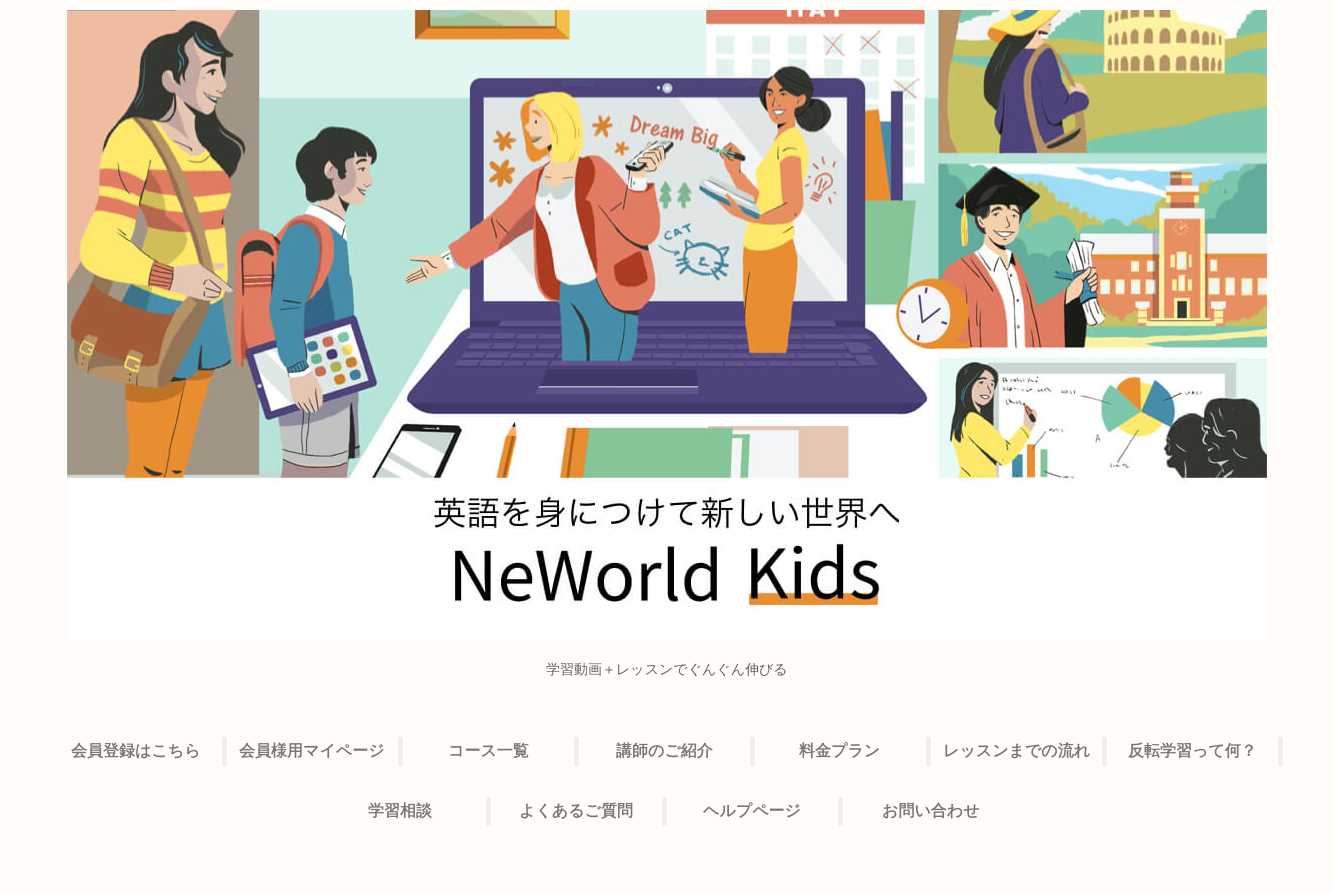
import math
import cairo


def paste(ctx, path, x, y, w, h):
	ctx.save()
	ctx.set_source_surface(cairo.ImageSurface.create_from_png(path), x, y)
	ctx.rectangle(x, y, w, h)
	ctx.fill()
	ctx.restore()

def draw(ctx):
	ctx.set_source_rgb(1, 0.988, 0.976)
	ctx.paint()
	paste(ctx, 'media/1.png', 67, 10, 1200, 630)
	ctx.select_font_face('WenQuanYi Zen Hei Medium')
	ctx.set_font_size(14)
	ctx.set_source_rgb(0.38, 0.38, 0.38)
	ctx.move_to(546, 674)
	ctx.show_text('学習動画＋レッスンでぐんぐん伸びる')
	ctx.set_source_rgb(0.953, 0.933, 0.914)
	ctx.rectangle(222, 737, 5, 29)
	ctx.fill()
	ctx.select_font_face('WenQuanYi Zen Hei', cairo.FONT_SLANT_NORMAL, cairo.FONT_WEIGHT_BOLD)
	ctx.set_font_size(16)
	ctx.set_source_rgb(0.475, 0.459, 0.443)
	ctx.move_to(71, 756)
	ctx.show_text('会員登録はこちら')
	ctx.set_source_rgb(0.953, 0.933, 0.914)
	ctx.rectangle(398, 737, 5, 29)
	ctx.fill()
	ctx.set_source_rgb(0.475, 0.459, 0.443)
	ctx.move_to(239, 756)
	ctx.show_text('会員様用マイページ')
	ctx.set_source_rgb(0.953, 0.933, 0.914)
	ctx.rectangle(574, 737, 5, 29)
	ctx.fill()
	ctx.set_source_rgb(0.475, 0.459, 0.443)
	ctx.move_to(448, 756)
	ctx.show_text('コース一覧')
	ctx.set_source_rgb(0.953, 0.933, 0.914)
	ctx.rectangle(750, 737, 5, 29)
	ctx.fill()
	ctx.set_source_rgb(0.475, 0.459, 0.443)
	ctx.move_to(616, 756)
	ctx.show_text('講師のご紹介')
	ctx.set_source_rgb(0.953, 0.933, 0.914)
	ctx.rectangle(926, 737, 5, 29)
	ctx.fill()
	ctx.set_source_rgb(0.475, 0.459, 0.443)
	ctx.move_to(799, 756)
	ctx.show_text('料金プラン')
	ctx.set_source_rgb(0.953, 0.933, 0.914)
	ctx.rectangle(1102, 737, 5, 29)
	ctx.fill()
	ctx.set_source_rgb(0.475, 0.459, 0.443)
	ctx.move_to(943, 756)
	ctx.show_text('レッスンまでの流れ')
	ctx.set_source_rgb(0.953, 0.933, 0.914)
	ctx.rectangle(1278, 737, 5, 29)
	ctx.fill()
	ctx.set_source_rgb(0.475, 0.459, 0.443)
	ctx.move_to(1128, 756)
	ctx.show_text('反転学習って何？')
	ctx.set_source_rgb(0.953, 0.933, 0.914)
	ctx.rectangle(486, 797, 5, 29)
	ctx.fill()
	ctx.set_source_rgb(0.475, 0.459, 0.443)
	ctx.move_to(368, 816)
	ctx.show_text('学習相談')
	ctx.set_source_rgb(0.953, 0.933, 0.914)
	ctx.rectangle(662, 797, 5, 29)
	ctx.fill()
	ctx.set_source_rgb(0.475, 0.459, 0.443)
	ctx.move_to(519, 816)
	ctx.show_text('よくあるご質問')
	ctx.set_source_rgb(0.953, 0.933, 0.914)
	ctx.rectangle(838, 797, 5, 29)
	ctx.fill()
	ctx.set_source_rgb(0.475, 0.459, 0.443)
	ctx.move_to(703, 816)
	ctx.show_text('ヘルプページ')
	ctx.move_to(882, 816)
	ctx.show_text('お問い合わせ')


surface = cairo.ImageSurface(cairo.FORMAT_RGB24, 1333, 893)
ctx = cairo.Context(surface)
options = cairo.FontOptions()
options.set_hint_metrics(cairo.HINT_METRICS_OFF)
options.set_hint_style(cairo.HINT_STYLE_NONE)
ctx.set_font_options(options)
ctx.set_miter_limit(4)
draw(ctx)
surface.write_to_png('image.png')
